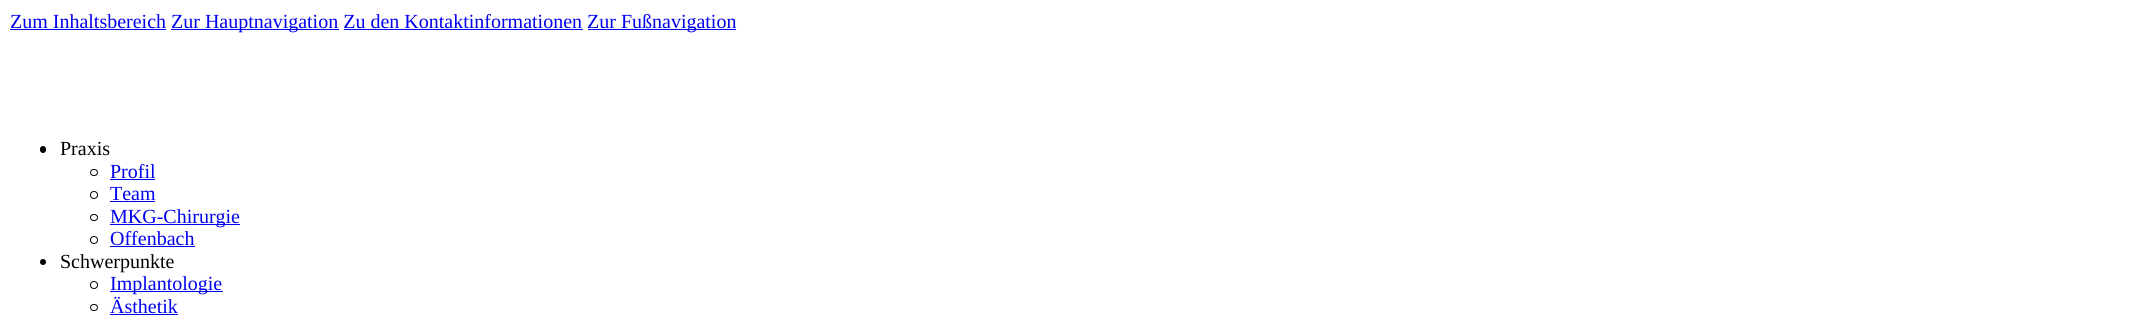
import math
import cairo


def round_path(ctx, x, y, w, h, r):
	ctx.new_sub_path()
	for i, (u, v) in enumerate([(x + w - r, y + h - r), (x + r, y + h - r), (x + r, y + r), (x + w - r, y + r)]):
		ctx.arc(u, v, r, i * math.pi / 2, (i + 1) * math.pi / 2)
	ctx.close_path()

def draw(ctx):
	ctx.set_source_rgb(1, 1, 1)
	ctx.paint()
	ctx.select_font_face('Liberation Serif')
	ctx.set_font_size(20)
	ctx.set_source_rgb(0, 0, 0.933)
	ctx.move_to(10, 28)
	ctx.show_text('Zum Inhaltsbereich')
	ctx.rectangle(10, 29, 156, 1)
	ctx.fill()
	ctx.rectangle(171, 29, 168, 1)
	ctx.fill()
	ctx.move_to(171, 28)
	ctx.show_text('Zur Hauptnavigation Zu den Kontaktinformationen')
	ctx.rectangle(588, 29, 148, 1)
	ctx.fill()
	ctx.move_to(587, 28)
	ctx.show_text('Zur Fußnavigation')
	ctx.rectangle(344, 29, 239, 1)
	ctx.fill()
	ctx.set_source_rgb(0, 0, 0)
	round_path(ctx, 40, 146, 6, 7, 3)
	ctx.fill()
	ctx.move_to(60, 155)
	ctx.show_text('Praxis')
	round_path(ctx, 90.5, 169.5, 7, 6, 3)
	ctx.set_line_width(1)
	ctx.stroke()
	ctx.set_source_rgb(0, 0, 0.933)
	ctx.move_to(110, 178)
	ctx.show_text('Profil')
	ctx.rectangle(110, 179, 45, 1)
	ctx.fill()
	ctx.arc(94, 195, 3.5, 0, 2 * math.pi)
	ctx.set_source_rgb(0, 0, 0)
	ctx.stroke()
	ctx.set_source_rgb(0, 0, 0.933)
	ctx.move_to(110, 200)
	ctx.show_text('Team')
	ctx.rectangle(110, 201, 45, 1)
	ctx.fill()
	round_path(ctx, 90.5, 214.5, 7, 6, 3)
	ctx.set_source_rgb(0, 0, 0)
	ctx.stroke()
	ctx.set_source_rgb(0, 0, 0.933)
	ctx.rectangle(110, 224, 130, 1)
	ctx.fill()
	ctx.move_to(110, 223)
	ctx.show_text('MKG-Chirurgie')
	ctx.new_path()
	ctx.arc(94, 240, 3.5, 0, 2 * math.pi)
	ctx.set_source_rgb(0, 0, 0)
	ctx.stroke()
	ctx.set_source_rgb(0, 0, 0.933)
	ctx.move_to(110, 245)
	ctx.show_text('Offenbach')
	ctx.rectangle(110, 246, 85, 1)
	ctx.fill()
	ctx.set_source_rgb(0, 0, 0)
	ctx.arc(43, 262, 3, 0, 2 * math.pi)
	ctx.fill()
	ctx.move_to(60, 268)
	ctx.show_text('Schwerpunkte')
	ctx.new_path()
	ctx.arc(94, 285, 3.5, 0, 2 * math.pi)
	ctx.stroke()
	ctx.set_source_rgb(0, 0, 0.933)
	ctx.rectangle(110, 291, 113, 1)
	ctx.fill()
	ctx.move_to(110, 290)
	ctx.show_text('Implantologie')
	round_path(ctx, 90.5, 304.5, 7, 6, 3)
	ctx.set_source_rgb(0, 0, 0)
	ctx.stroke()
	ctx.set_source_rgb(0, 0, 0.933)
	ctx.move_to(110, 313)
	ctx.show_text('Ästhetik')
	ctx.rectangle(110, 314, 68, 1)
	ctx.fill()


surface = cairo.ImageSurface(cairo.FORMAT_RGB24, 2147, 326)
ctx = cairo.Context(surface)
options = cairo.FontOptions()
options.set_hint_metrics(cairo.HINT_METRICS_OFF)
options.set_hint_style(cairo.HINT_STYLE_NONE)
ctx.set_font_options(options)
ctx.set_miter_limit(4)
draw(ctx)
surface.write_to_png('image.png')
